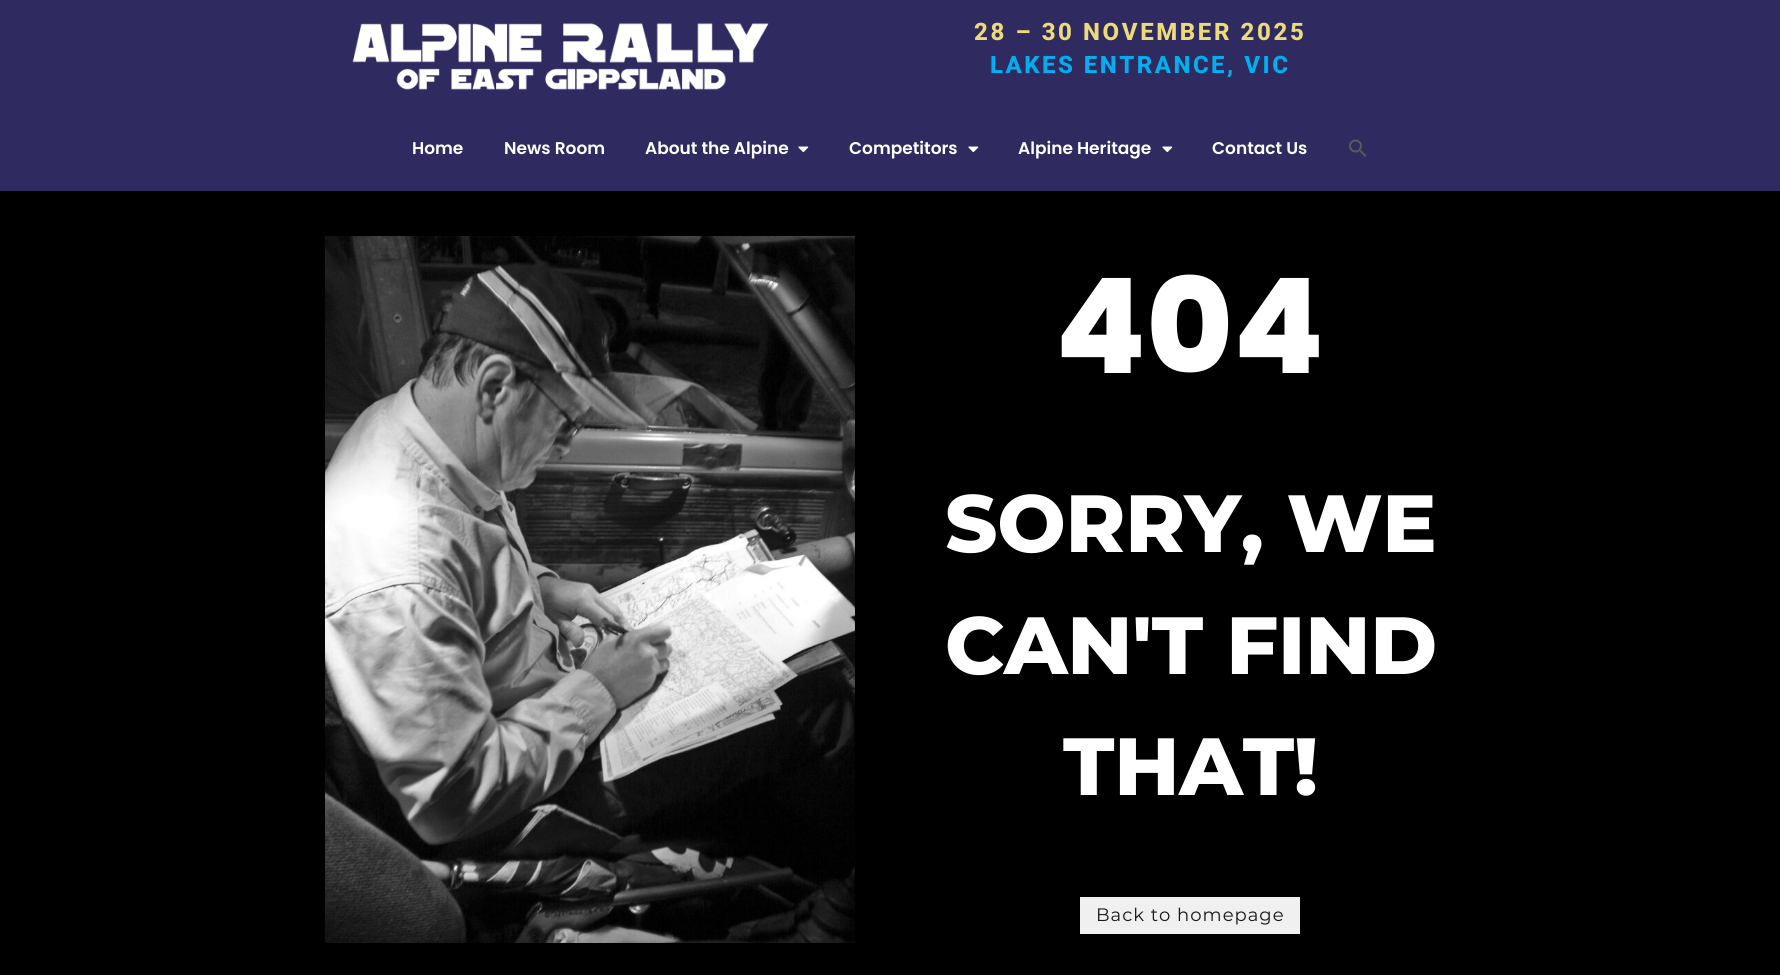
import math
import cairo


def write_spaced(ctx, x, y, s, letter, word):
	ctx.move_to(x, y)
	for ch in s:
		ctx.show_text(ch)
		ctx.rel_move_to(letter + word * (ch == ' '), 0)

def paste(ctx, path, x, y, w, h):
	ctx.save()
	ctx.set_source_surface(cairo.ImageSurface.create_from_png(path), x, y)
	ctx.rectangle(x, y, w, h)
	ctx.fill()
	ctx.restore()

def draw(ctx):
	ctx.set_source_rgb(0.184, 0.165, 0.373)
	ctx.paint()
	paste(ctx, 'media/1.png', 352, 23, 417, 67)
	ctx.select_font_face('Roboto ExtraBold')
	ctx.set_font_size(24)
	ctx.set_source_rgb(0.918, 0.859, 0.482)
	write_spaced(ctx, 974, 40, '28 – 30 NOVEMBER 2025', 2.6, 0)
	ctx.set_source_rgb(0, 0.686, 0.937)
	write_spaced(ctx, 990, 73, 'LAKES ENTRANCE, VIC', 2.5, 0)
	ctx.select_font_face('Poppins SemiBold')
	ctx.set_font_size(17)
	ctx.set_source_rgb(1, 1, 1)
	for x, y, s in [
		(412, 154, 'Home'),
		(504, 154, 'News Room'),
		(645, 154, 'About the Alpine'),
	]:
		ctx.move_to(x, y)
		ctx.show_text(s)
	paste(ctx, 'media/2.png', 798, 146, 11, 7)
	ctx.move_to(849, 154)
	ctx.show_text('Competitors')
	paste(ctx, 'media/2.png', 968, 146, 11, 7)
	ctx.move_to(1018, 154)
	ctx.show_text('Alpine Heritage')
	paste(ctx, 'media/2.png', 1162, 146, 11, 7)
	ctx.move_to(1212, 154)
	ctx.show_text('Contact Us')
	paste(ctx, 'media/3.png', 1349, 139, 18, 18)
	ctx.set_source_rgb(0, 0, 0)
	ctx.rectangle(0, 191, 1780, 784)
	ctx.fill()
	paste(ctx, 'media/4.png', 325, 236, 530, 707)
	ctx.select_font_face('Poppins ExtraBold')
	ctx.set_font_size(132)
	ctx.set_source_rgb(1, 1, 1)
	ctx.move_to(1055, 373)
	ctx.show_text('404')
	ctx.select_font_face('Montserrat ExtraBold')
	ctx.set_font_size(81)
	for x, y, s in [
		(945, 552, 'SORRY, WE'),
		(945, 674, 'CAN\'T FIND'),
		(1063, 795, 'THAT!'),
	]:
		write_spaced(ctx, x, y, s, -0.25, 0)
	ctx.set_source_rgb(0.941, 0.941, 0.941)
	ctx.rectangle(1080, 897, 220, 37)
	ctx.fill()
	ctx.select_font_face('Montserrat')
	ctx.set_font_size(18)
	ctx.set_source_rgb(0.094, 0.094, 0.094)
	write_spaced(ctx, 1096, 921, 'Back to homepage', 1, 0)


surface = cairo.ImageSurface(cairo.FORMAT_RGB24, 1780, 975)
ctx = cairo.Context(surface)
options = cairo.FontOptions()
options.set_hint_metrics(cairo.HINT_METRICS_OFF)
options.set_hint_style(cairo.HINT_STYLE_NONE)
ctx.set_font_options(options)
ctx.set_miter_limit(4)
draw(ctx)
surface.write_to_png('image.png')
